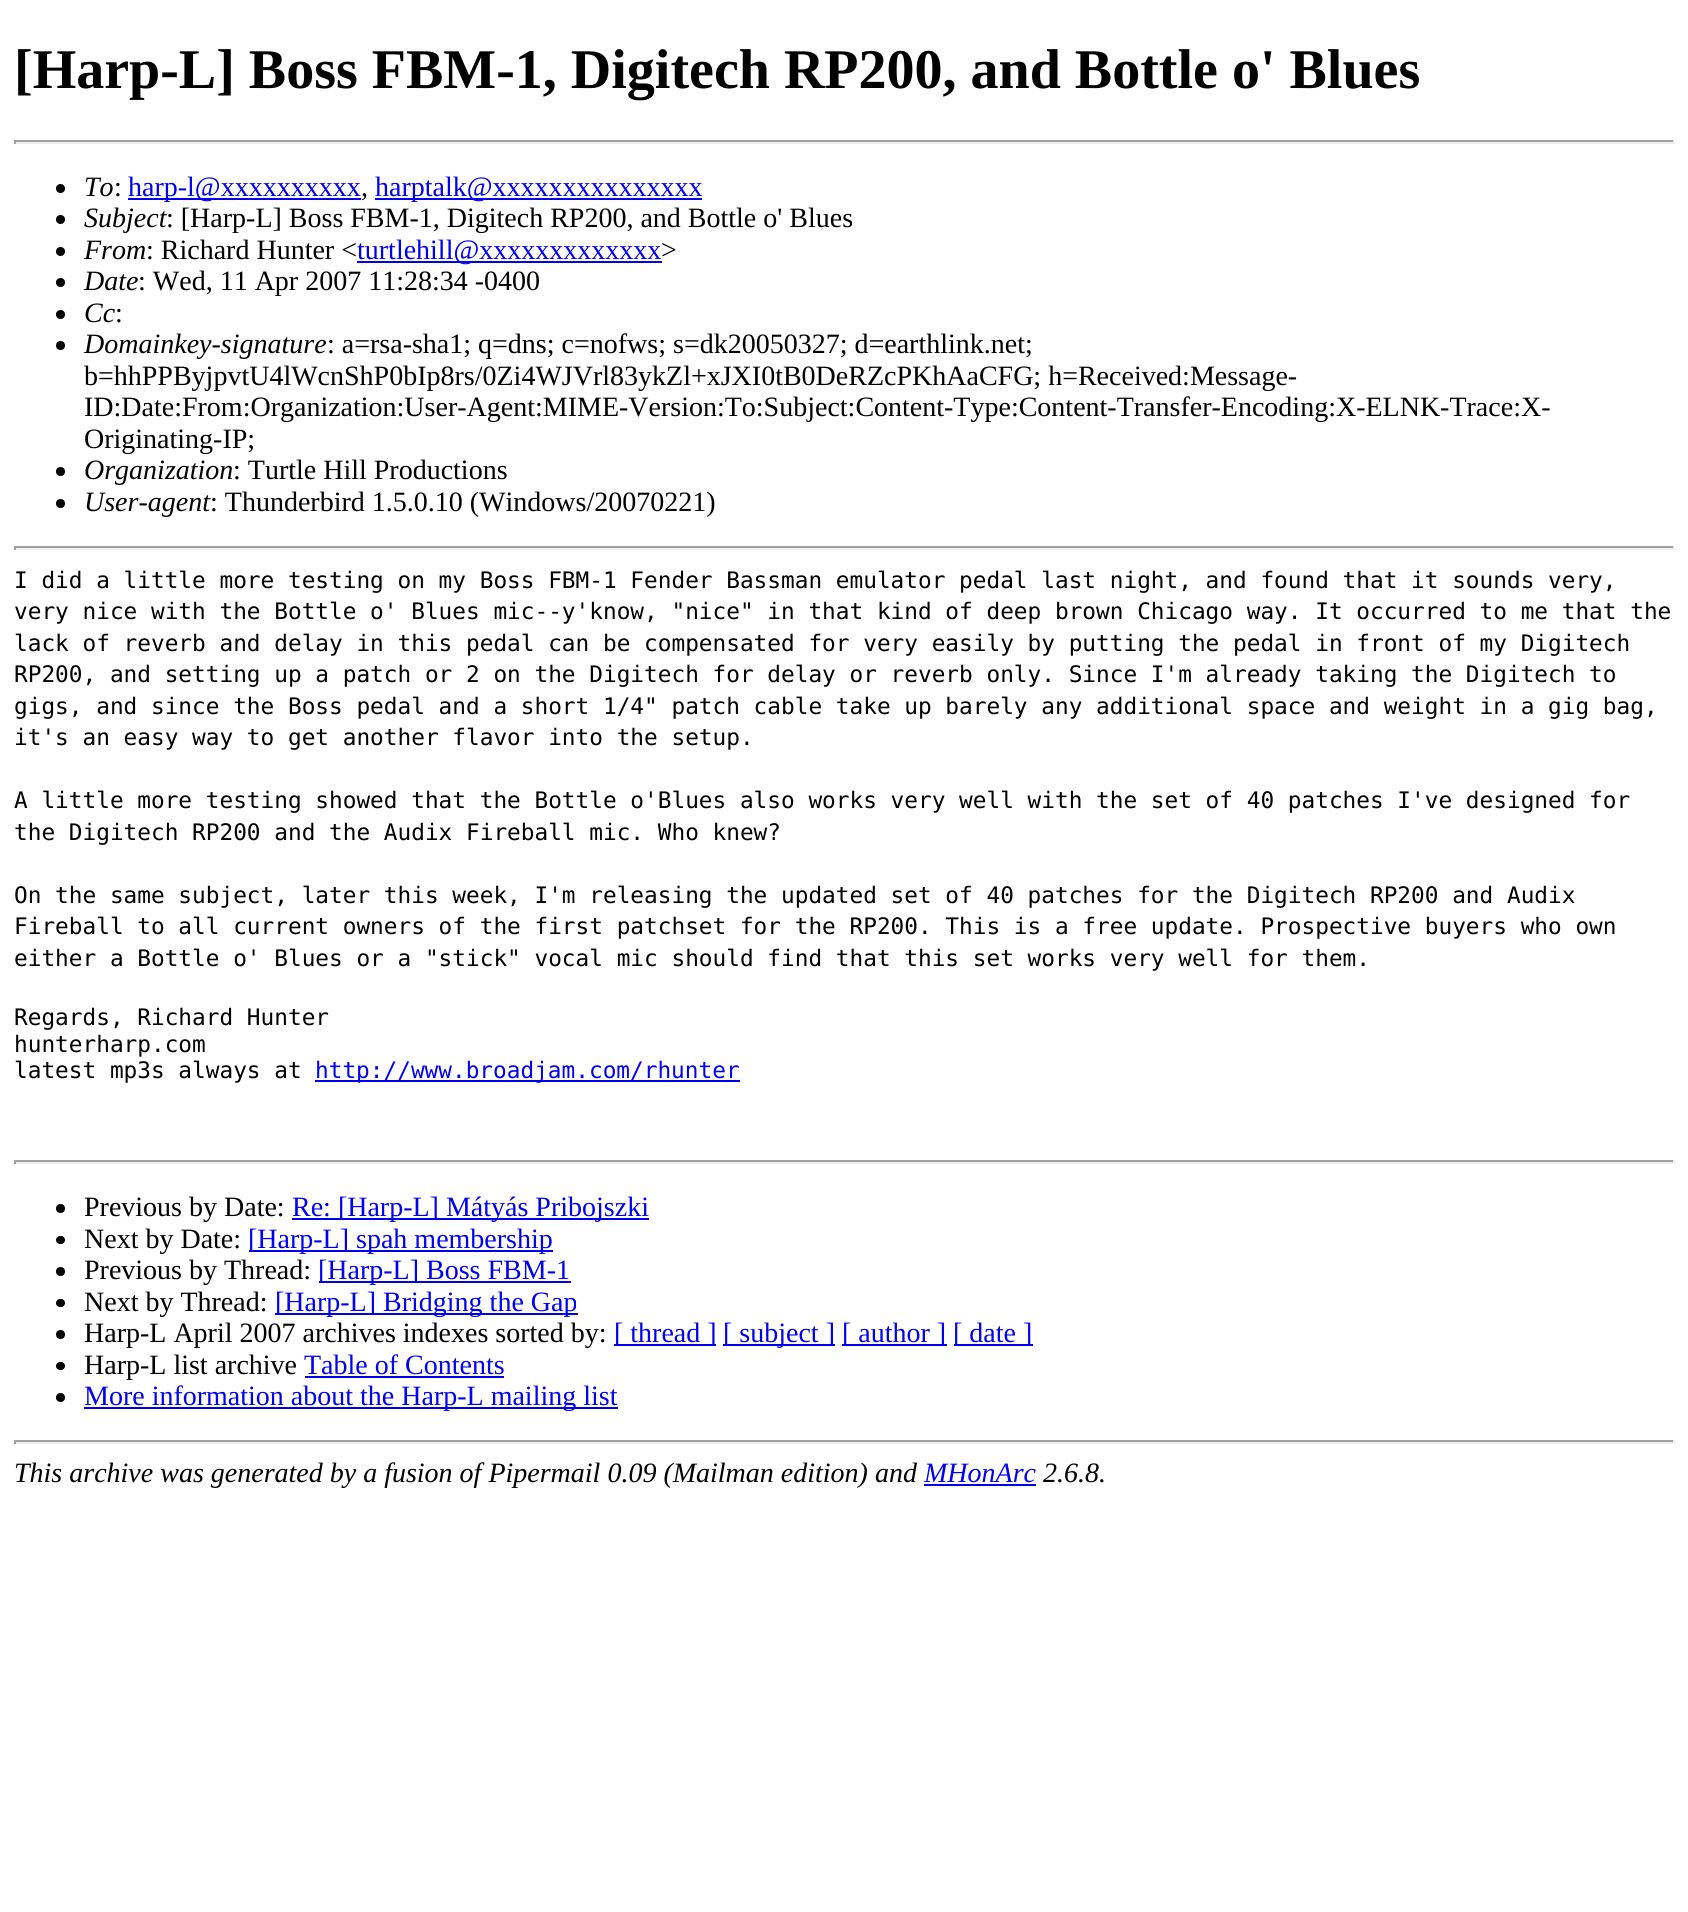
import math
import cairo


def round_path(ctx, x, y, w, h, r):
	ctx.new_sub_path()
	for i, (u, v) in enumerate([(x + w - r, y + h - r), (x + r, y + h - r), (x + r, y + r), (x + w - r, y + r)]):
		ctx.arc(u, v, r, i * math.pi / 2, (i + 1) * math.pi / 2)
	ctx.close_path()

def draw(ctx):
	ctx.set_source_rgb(1, 1, 1)
	ctx.paint()
	ctx.select_font_face('Liberation Serif', cairo.FONT_SLANT_NORMAL, cairo.FONT_WEIGHT_BOLD)
	ctx.set_font_size(56)
	ctx.set_source_rgb(0, 0, 0)
	ctx.move_to(14, 88)
	ctx.show_text('[Harp-L] Boss FBM-1, Digitech RP200, and Bottle o\' Blues')
	ctx.set_source_rgb(0.624, 0.624, 0.624)
	ctx.rectangle(14, 140, 1661, 2)
	ctx.fill()
	ctx.set_source_rgb(0.933, 0.933, 0.933)
	ctx.rectangle(1673, 140, 2, 4)
	ctx.rectangle(14, 142, 1661, 2)
	ctx.fill()
	ctx.set_source_rgb(0.624, 0.624, 0.624)
	ctx.rectangle(14, 140, 2, 4)
	ctx.fill()
	ctx.set_source_rgb(0, 0, 0)
	ctx.arc(60.5, 188.5, 4.5, 0, 2 * math.pi)
	ctx.fill()
	ctx.select_font_face('Liberation Serif', cairo.FONT_SLANT_ITALIC)
	ctx.set_font_size(28)
	ctx.move_to(84, 196)
	ctx.show_text('To')
	ctx.select_font_face('Liberation Serif')
	ctx.move_to(114, 196)
	ctx.show_text(':')
	ctx.set_source_rgb(0, 0, 0.933)
	ctx.rectangle(128, 198, 233, 2)
	ctx.fill()
	ctx.move_to(128, 196)
	ctx.show_text('harp-l@xxxxxxxxxx')
	ctx.rectangle(375, 198, 327, 2)
	ctx.fill()
	ctx.move_to(375, 196)
	ctx.show_text('harptalk@xxxxxxxxxxxxxxx')
	ctx.set_source_rgb(0, 0, 0)
	ctx.move_to(361, 196)
	ctx.show_text(',')
	ctx.new_path()
	ctx.arc(60.5, 219.5, 4.5, 0, 2 * math.pi)
	ctx.fill()
	ctx.select_font_face('Liberation Serif', cairo.FONT_SLANT_ITALIC)
	ctx.move_to(84, 227)
	ctx.show_text('Subject')
	ctx.select_font_face('Liberation Serif')
	ctx.move_to(166, 227)
	ctx.show_text(': [Harp-L] Boss FBM-1, Digitech RP200, and Bottle o\' Blues')
	ctx.new_path()
	ctx.arc(60.5, 251.5, 4.5, 0, 2 * math.pi)
	ctx.fill()
	ctx.select_font_face('Liberation Serif', cairo.FONT_SLANT_ITALIC)
	ctx.move_to(84, 259)
	ctx.show_text('From')
	ctx.select_font_face('Liberation Serif')
	ctx.move_to(146, 259)
	ctx.show_text(': Richard Hunter <')
	ctx.set_source_rgb(0, 0, 0.933)
	ctx.rectangle(357, 261, 305, 2)
	ctx.fill()
	ctx.move_to(357, 259)
	ctx.show_text('turtlehill@xxxxxxxxxxxxx')
	ctx.set_source_rgb(0, 0, 0)
	ctx.move_to(661, 259)
	ctx.show_text('>')
	ctx.new_path()
	ctx.arc(60.5, 282.5, 4.5, 0, 2 * math.pi)
	ctx.fill()
	ctx.select_font_face('Liberation Serif', cairo.FONT_SLANT_ITALIC)
	ctx.move_to(84, 290)
	ctx.show_text('Date')
	ctx.select_font_face('Liberation Serif')
	ctx.move_to(138, 290)
	ctx.show_text(': Wed, 11 Apr 2007 11:28:34 -0400')
	ctx.new_path()
	ctx.arc(60.5, 314.5, 4.5, 0, 2 * math.pi)
	ctx.fill()
	ctx.select_font_face('Liberation Serif', cairo.FONT_SLANT_ITALIC)
	ctx.move_to(84, 322)
	ctx.show_text('Cc')
	ctx.select_font_face('Liberation Serif')
	ctx.move_to(115, 322)
	ctx.show_text(':')
	ctx.new_path()
	ctx.arc(60.5, 345.5, 4.5, 0, 2 * math.pi)
	ctx.fill()
	ctx.select_font_face('Liberation Serif', cairo.FONT_SLANT_ITALIC)
	ctx.move_to(84, 353)
	ctx.show_text('Domainkey-signature')
	ctx.select_font_face('Liberation Serif')
	for x, y, s in [
		(327, 353, ': a=rsa-sha1; q=dns; c=nofws; s=dk20050327; d=earthlink.net;'),
		(84, 385, 'b=hhPPByjpvtU4lWcnShP0bIp8rs/0Zi4WJVrl83ykZl+xJXI0tB0DeRZcPKhAaCFG; h=Received:Message-'),
		(84, 416, 'ID:Date:From:Organization:User-Agent:MIME-Version:To:Subject:Content-Type:Content-Transfer-Encoding:X-ELNK-Trace:X-'),
		(84, 448, 'Originating-IP;'),
	]:
		ctx.move_to(x, y)
		ctx.show_text(s)
	ctx.new_path()
	ctx.arc(60.5, 471.5, 4.5, 0, 2 * math.pi)
	ctx.fill()
	ctx.select_font_face('Liberation Serif', cairo.FONT_SLANT_ITALIC)
	ctx.move_to(84, 479)
	ctx.show_text('Organization')
	ctx.select_font_face('Liberation Serif')
	ctx.move_to(233, 479)
	ctx.show_text(': Turtle Hill Productions')
	ctx.new_path()
	ctx.arc(60.5, 503.5, 4.5, 0, 2 * math.pi)
	ctx.fill()
	ctx.select_font_face('Liberation Serif', cairo.FONT_SLANT_ITALIC)
	ctx.move_to(84, 511)
	ctx.show_text('User-agent')
	ctx.select_font_face('Liberation Serif')
	ctx.move_to(210, 511)
	ctx.show_text(': Thunderbird 1.5.0.10 (Windows/20070221)')
	ctx.set_source_rgb(0.624, 0.624, 0.624)
	ctx.rectangle(14, 546, 1661, 2)
	ctx.fill()
	ctx.set_source_rgb(0.933, 0.933, 0.933)
	ctx.rectangle(1673, 546, 2, 4)
	ctx.rectangle(14, 548, 1661, 2)
	ctx.fill()
	ctx.set_source_rgb(0.624, 0.624, 0.624)
	ctx.rectangle(14, 546, 2, 4)
	ctx.fill()
	ctx.select_font_face('DejaVu Sans Mono')
	ctx.set_font_size(22.75)
	ctx.set_source_rgb(0, 0, 0)
	for x, y, s in [
		(14, 588, 'I did a little more testing on my Boss FBM-1 Fender Bassman emulator pedal last night, and found that it sounds very,'),
		(14, 619, 'very nice with the Bottle o\' Blues mic--y\'know, "nice" in that kind of deep brown Chicago way. It occurred to me that the'),
		(14, 651, 'lack of reverb and delay in this pedal can be compensated for very easily by putting the pedal in front of my Digitech'),
		(14, 682, 'RP200, and setting up a patch or 2 on the Digitech for delay or reverb only. Since I\'m already taking the Digitech to'),
		(14, 714, 'gigs, and since the Boss pedal and a short 1/4" patch cable take up barely any additional space and weight in a gig bag,'),
		(14, 745, 'it\'s an easy way to get another flavor into the setup.'),
		(14, 808, 'A little more testing showed that the Bottle o\'Blues also works very well with the set of 40 patches I\'ve designed for'),
		(14, 840, 'the Digitech RP200 and the Audix Fireball mic. Who knew?'),
		(14, 903, 'On the same subject, later this week, I\'m releasing the updated set of 40 patches for the Digitech RP200 and Audix'),
		(14, 934, 'Fireball to all current owners of the first patchset for the RP200. This is a free update. Prospective buyers who own'),
		(14, 966, 'either a Bottle o\' Blues or a "stick" vocal mic should find that this set works very well for them.'),
		(14, 1025, 'Regards, Richard Hunter'),
		(14, 1052, 'hunterharp.com'),
		(14, 1078, 'latest mp3s always at'),
	]:
		ctx.move_to(x, y)
		ctx.show_text(s)
	ctx.set_source_rgb(0, 0, 0.933)
	ctx.rectangle(315, 1080, 425, 2)
	ctx.fill()
	ctx.move_to(315, 1078)
	ctx.show_text('http://www.broadjam.com/rhunter')
	ctx.set_source_rgb(0.624, 0.624, 0.624)
	ctx.rectangle(14, 1160, 1661, 2)
	ctx.fill()
	ctx.set_source_rgb(0.933, 0.933, 0.933)
	ctx.rectangle(1673, 1160, 2, 4)
	ctx.rectangle(14, 1162, 1661, 2)
	ctx.fill()
	ctx.set_source_rgb(0.624, 0.624, 0.624)
	ctx.rectangle(14, 1160, 2, 4)
	ctx.fill()
	ctx.set_source_rgb(0, 0, 0)
	ctx.arc(60.5, 1208.5, 4.5, 0, 2 * math.pi)
	ctx.fill()
	ctx.select_font_face('Liberation Serif')
	ctx.set_font_size(28)
	ctx.move_to(84, 1216)
	ctx.show_text('Previous by Date:')
	ctx.set_source_rgb(0, 0, 0.933)
	ctx.rectangle(292, 1218, 357, 2)
	ctx.fill()
	ctx.move_to(292, 1216)
	ctx.show_text('Re: [Harp-L] Mátyás Pribojszki')
	ctx.set_source_rgb(0, 0, 0)
	round_path(ctx, 56, 1236, 9, 8, 4)
	ctx.fill()
	ctx.move_to(84, 1248)
	ctx.show_text('Next by Date:')
	ctx.set_source_rgb(0, 0, 0.933)
	ctx.rectangle(249, 1250, 304, 2)
	ctx.fill()
	ctx.move_to(248, 1248)
	ctx.show_text('[Harp-L] spah membership')
	ctx.set_source_rgb(0, 0, 0)
	ctx.new_path()
	ctx.arc(60.5, 1271.5, 4.5, 0, 2 * math.pi)
	ctx.fill()
	ctx.move_to(84, 1279)
	ctx.show_text('Previous by Thread:')
	ctx.set_source_rgb(0, 0, 0.933)
	ctx.rectangle(319, 1281, 252, 2)
	ctx.fill()
	ctx.move_to(318, 1279)
	ctx.show_text('[Harp-L] Boss FBM-1')
	ctx.set_source_rgb(0, 0, 0)
	round_path(ctx, 56, 1299, 9, 8, 4)
	ctx.fill()
	ctx.move_to(84, 1311)
	ctx.show_text('Next by Thread:')
	ctx.set_source_rgb(0, 0, 0.933)
	ctx.rectangle(275, 1313, 303, 2)
	ctx.fill()
	ctx.move_to(275, 1311)
	ctx.show_text('[Harp-L] Bridging the Gap')
	ctx.set_source_rgb(0, 0, 0)
	ctx.new_path()
	ctx.arc(60.5, 1334.5, 4.5, 0, 2 * math.pi)
	ctx.fill()
	ctx.move_to(84, 1342)
	ctx.show_text('Harp-L April 2007 archives indexes sorted by:')
	ctx.set_source_rgb(0, 0, 0.933)
	ctx.rectangle(614, 1344, 102, 2)
	ctx.fill()
	ctx.move_to(614, 1342)
	ctx.show_text('[ thread ]')
	ctx.rectangle(723, 1344, 112, 2)
	ctx.fill()
	ctx.move_to(723, 1342)
	ctx.show_text('[ subject ]')
	ctx.rectangle(842, 1344, 105, 2)
	ctx.fill()
	ctx.move_to(842, 1342)
	ctx.show_text('[ author ]')
	ctx.rectangle(954, 1344, 79, 2)
	ctx.fill()
	ctx.move_to(953, 1342)
	ctx.show_text('[ date ]')
	ctx.set_source_rgb(0, 0, 0)
	round_path(ctx, 56, 1362, 9, 8, 4)
	ctx.fill()
	ctx.move_to(84, 1374)
	ctx.show_text('Harp-L list archive')
	ctx.set_source_rgb(0, 0, 0.933)
	ctx.move_to(304, 1374)
	ctx.show_text('Table of Contents')
	ctx.rectangle(305, 1376, 199, 2)
	ctx.fill()
	ctx.set_source_rgb(0, 0, 0)
	ctx.arc(60.5, 1397.5, 4.5, 0, 2 * math.pi)
	ctx.fill()
	ctx.set_source_rgb(0, 0, 0.933)
	ctx.rectangle(84, 1407, 534, 2)
	ctx.fill()
	ctx.move_to(84, 1405)
	ctx.show_text('More information about the Harp-L mailing list')
	ctx.set_source_rgb(0.624, 0.624, 0.624)
	ctx.rectangle(14, 1440, 1661, 2)
	ctx.fill()
	ctx.set_source_rgb(0.933, 0.933, 0.933)
	ctx.rectangle(1673, 1440, 2, 4)
	ctx.rectangle(14, 1442, 1661, 2)
	ctx.fill()
	ctx.set_source_rgb(0.624, 0.624, 0.624)
	ctx.rectangle(14, 1440, 2, 4)
	ctx.fill()
	ctx.select_font_face('Liberation Serif', cairo.FONT_SLANT_ITALIC)
	ctx.set_source_rgb(0, 0, 0)
	ctx.move_to(14, 1482)
	ctx.show_text('This archive was generated by a fusion of Pipermail 0.09 (Mailman edition) and')
	ctx.set_source_rgb(0, 0, 0.933)
	ctx.move_to(924, 1482)
	ctx.show_text('MHonArc')
	ctx.rectangle(924, 1484, 112, 2)
	ctx.fill()
	ctx.set_source_rgb(0, 0, 0)
	ctx.move_to(1043, 1482)
	ctx.show_text('2.6.8.')


surface = cairo.ImageSurface(cairo.FORMAT_RGB24, 1688, 1912)
ctx = cairo.Context(surface)
options = cairo.FontOptions()
options.set_hint_metrics(cairo.HINT_METRICS_OFF)
options.set_hint_style(cairo.HINT_STYLE_NONE)
ctx.set_font_options(options)
ctx.set_miter_limit(4)
draw(ctx)
surface.write_to_png('image.png')
